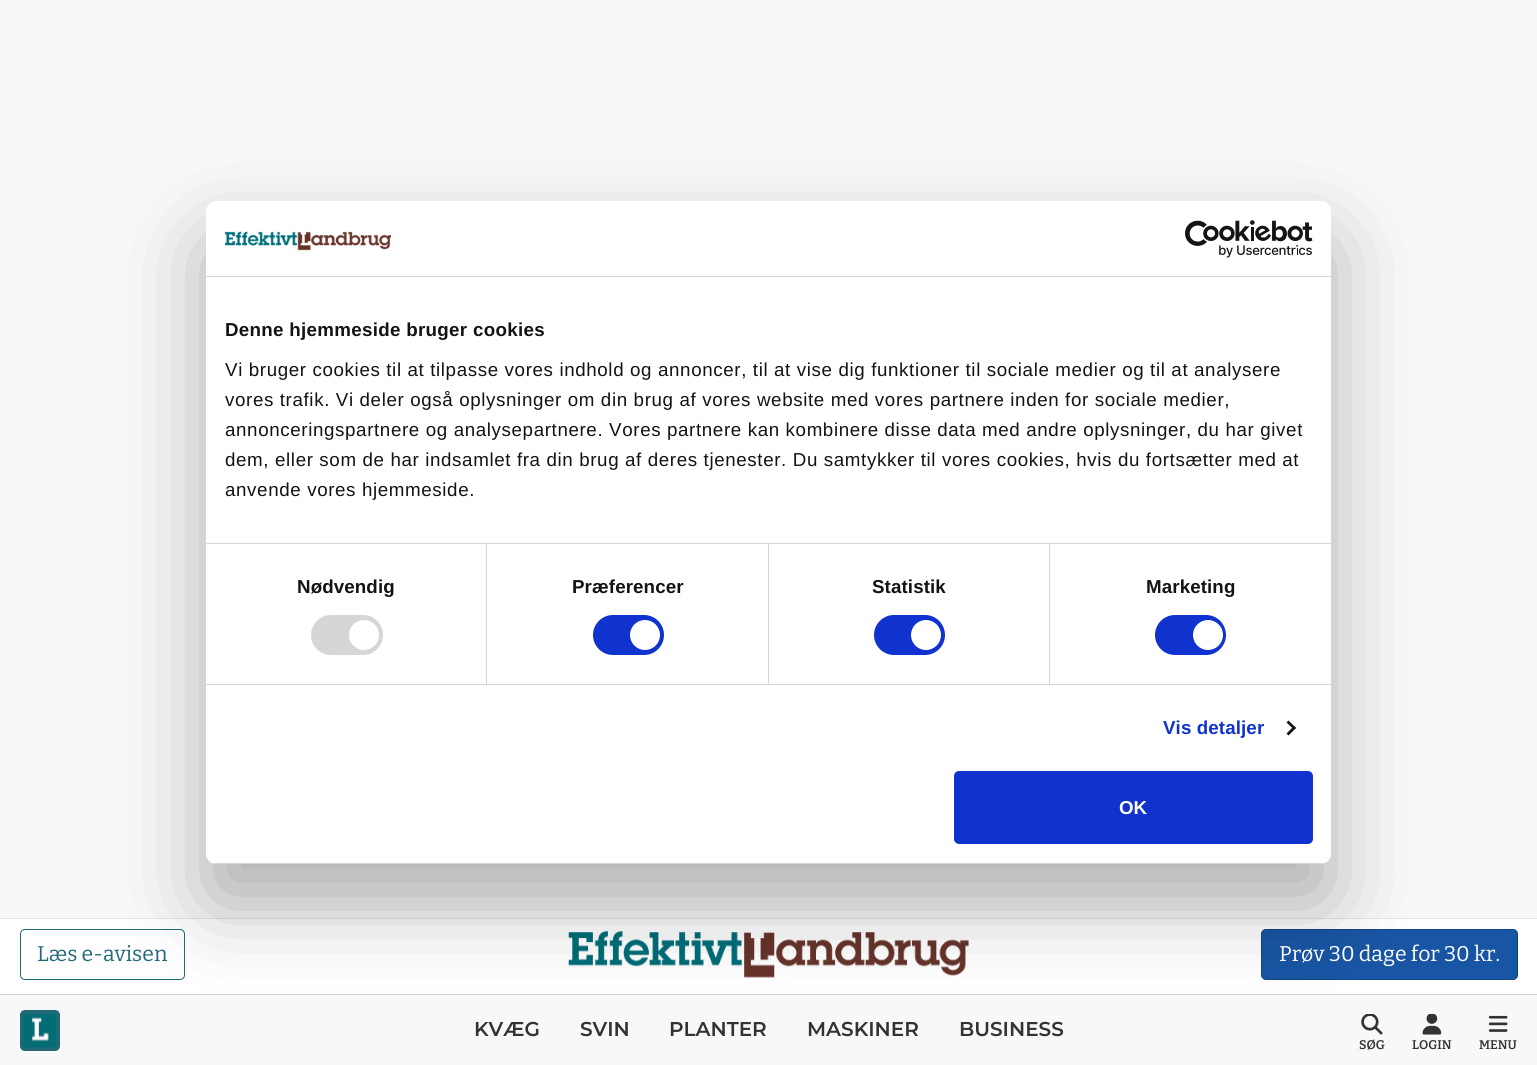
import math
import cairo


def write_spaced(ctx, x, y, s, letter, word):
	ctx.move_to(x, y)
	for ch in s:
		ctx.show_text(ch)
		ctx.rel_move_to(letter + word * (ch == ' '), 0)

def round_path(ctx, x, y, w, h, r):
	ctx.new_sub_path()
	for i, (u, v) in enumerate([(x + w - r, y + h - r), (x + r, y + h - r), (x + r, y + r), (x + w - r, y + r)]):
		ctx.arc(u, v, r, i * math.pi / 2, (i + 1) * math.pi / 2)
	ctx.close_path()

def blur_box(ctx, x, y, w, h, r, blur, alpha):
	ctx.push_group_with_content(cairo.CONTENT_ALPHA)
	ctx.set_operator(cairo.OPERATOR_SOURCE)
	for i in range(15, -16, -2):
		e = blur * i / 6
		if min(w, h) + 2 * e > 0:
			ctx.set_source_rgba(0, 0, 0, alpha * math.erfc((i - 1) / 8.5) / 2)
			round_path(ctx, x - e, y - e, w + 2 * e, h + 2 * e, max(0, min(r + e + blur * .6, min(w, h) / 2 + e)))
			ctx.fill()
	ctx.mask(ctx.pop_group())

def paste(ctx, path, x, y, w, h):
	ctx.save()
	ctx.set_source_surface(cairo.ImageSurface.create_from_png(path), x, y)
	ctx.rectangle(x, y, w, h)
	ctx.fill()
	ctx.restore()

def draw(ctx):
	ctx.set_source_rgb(0.969, 0.969, 0.969)
	ctx.paint()
	ctx.set_source_rgb(0.902, 0.902, 0.898)
	ctx.rectangle(0, 918, 1537, 1)
	ctx.fill()
	ctx.set_source_rgb(1, 1, 1)
	ctx.rectangle(0, 919, 1537, 75)
	ctx.fill()
	round_path(ctx, 20.5, 929.5, 164, 50, 4.5)
	ctx.set_source_rgb(0.133, 0.412, 0.467)
	ctx.set_line_width(1)
	ctx.stroke()
	paste(ctx, 'media/3.png', 568, 931, 401, 47)
	ctx.set_source_rgb(0.098, 0.333, 0.647)
	round_path(ctx, 1261.5, 929.5, 256, 50, 4.5)
	ctx.fill_preserve()
	ctx.set_source_rgb(0.078, 0.267, 0.518)
	ctx.stroke()
	ctx.set_source_rgb(0.824, 0.824, 0.816)
	ctx.rectangle(0, 994, 1537, 1)
	ctx.fill()
	paste(ctx, 'media/5.png', 1361, 1014, 22, 21)
	paste(ctx, 'media/6.png', 1422, 1014, 20, 21)
	ctx.set_source_rgb(0, 0, 0)
	blur_box(ctx, 206, 241, 1125, 663, 10, 42.5, 0.3)
	ctx.set_source_rgb(1, 1, 1)
	round_path(ctx, 206, 201, 1125, 663, 10)
	ctx.fill()
	ctx.set_source_rgb(0.839, 0.839, 0.839)
	ctx.rectangle(206, 276, 1125, 1)
	ctx.fill()
	paste(ctx, 'media/1.png', 225, 231, 167, 20)
	paste(ctx, 'media/2.png', 1185, 220, 128, 38)
	ctx.rectangle(206, 543, 1125, 1)
	ctx.fill()
	ctx.select_font_face('Liberation Sans', cairo.FONT_SLANT_NORMAL, cairo.FONT_WEIGHT_BOLD)
	ctx.set_font_size(18.75)
	ctx.set_source_rgb(0.078, 0.078, 0.078)
	write_spaced(ctx, 225, 336, 'Denne hjemmeside bruger cookies', 0.3, 0)
	ctx.select_font_face('Liberation Sans')
	for x, y, s in [
		(225, 376, 'Vi bruger cookies til at tilpasse vores indhold og annoncer, til at vise dig funktioner til sociale medier og til at analysere'),
		(225, 406, 'vores trafik. Vi deler også oplysninger om din brug af vores website med vores partnere inden for sociale medier,'),
		(225, 436, 'annonceringspartnere og analysepartnere. Vores partnere kan kombinere disse data med andre oplysninger, du har givet'),
		(225, 466, 'dem, eller som de har indsamlet fra din brug af deres tjenester. Du samtykker til vores cookies, hvis du fortsætter med at'),
		(225, 496, 'anvende vores hjemmeside.'),
	]:
		write_spaced(ctx, x, y, s, 0.62, 0)
	ctx.set_source_rgb(0.839, 0.839, 0.839)
	ctx.rectangle(206, 684, 1125, 1)
	ctx.fill()
	ctx.rectangle(486, 544, 1, 140)
	ctx.fill()
	ctx.select_font_face('Liberation Sans', cairo.FONT_SLANT_NORMAL, cairo.FONT_WEIGHT_BOLD)
	ctx.set_source_rgb(0.078, 0.078, 0.078)
	write_spaced(ctx, 297, 593, 'Nødvendig', 0.1, 0)
	ctx.set_source_rgb(0.839, 0.839, 0.839)
	round_path(ctx, 311, 615, 72, 40, 20)
	ctx.fill()
	ctx.set_source_rgb(1, 1, 1)
	ctx.arc(364, 635, 15, 0, 2 * math.pi)
	ctx.fill()
	ctx.set_source_rgb(0.839, 0.839, 0.839)
	ctx.rectangle(768, 544, 1, 140)
	ctx.fill()
	ctx.set_source_rgb(0.078, 0.078, 0.078)
	write_spaced(ctx, 572, 593, 'Præferencer', 0.1, 0)
	ctx.set_source_rgb(0.063, 0.196, 0.812)
	round_path(ctx, 593, 615, 71, 40, 20)
	ctx.fill()
	ctx.set_source_rgb(1, 1, 1)
	ctx.arc(645, 635, 15, 0, 2 * math.pi)
	ctx.fill()
	ctx.set_source_rgb(0.839, 0.839, 0.839)
	ctx.rectangle(1049, 544, 1, 140)
	ctx.fill()
	ctx.set_source_rgb(0.078, 0.078, 0.078)
	write_spaced(ctx, 872, 593, 'Statistik', 0.1, 0)
	ctx.set_source_rgb(0.063, 0.196, 0.812)
	round_path(ctx, 874, 615, 71, 40, 20)
	ctx.fill()
	ctx.set_source_rgb(1, 1, 1)
	ctx.arc(926, 635, 15, 0, 2 * math.pi)
	ctx.fill()
	ctx.set_source_rgb(0.078, 0.078, 0.078)
	write_spaced(ctx, 1146, 593, 'Marketing', 0.1, 0)
	ctx.set_source_rgb(0.063, 0.196, 0.812)
	round_path(ctx, 1155, 615, 71, 40, 20)
	ctx.fill()
	ctx.set_source_rgb(1, 1, 1)
	ctx.arc(1208, 635, 15, 0, 2 * math.pi)
	ctx.fill()
	ctx.set_source_rgb(0.063, 0.196, 0.812)
	write_spaced(ctx, 1163, 734, 'Vis detaljer', 0.1, 0)
	ctx.set_source_rgb(0.078, 0.078, 0.078)
	ctx.new_path()
	ctx.move_to(1288.5, 720.5)
	ctx.line_to(1296, 728)
	ctx.line_to(1294, 729.5)
	ctx.line_to(1286.5, 722.5)
	ctx.close_path()
	ctx.fill()
	ctx.new_path()
	ctx.move_to(1294, 726)
	ctx.line_to(1296, 728)
	ctx.line_to(1288.5, 735.5)
	ctx.line_to(1286.5, 733.5)
	ctx.close_path()
	ctx.fill()
	ctx.save()
	round_path(ctx, 206, 201, 1125, 663, 10)
	ctx.clip()
	ctx.set_source_rgb(0.839, 0.839, 0.839)
	ctx.rectangle(206, 863, 1125, 1)
	ctx.fill()
	ctx.restore()
	ctx.set_source_rgb(0.063, 0.196, 0.812)
	round_path(ctx, 955.5, 772.5, 356, 70, 3.5)
	ctx.fill_preserve()
	ctx.set_line_width(3)
	ctx.stroke()
	ctx.set_source_rgb(1, 1, 1)
	ctx.move_to(1119, 814)
	ctx.show_text('OK')
	ctx.select_font_face('Bitter')
	ctx.set_font_size(21.25)
	ctx.set_source_rgb(0.133, 0.412, 0.467)
	ctx.move_to(37, 961)
	ctx.show_text('Læs e-avisen')
	ctx.set_source_rgb(1, 1, 1)
	ctx.move_to(1279, 961)
	ctx.show_text('Prøv 30 dage for 30 kr.')
	ctx.set_source_rgb(0.133, 0.412, 0.467)
	round_path(ctx, 20, 1010, 40, 41, 5)
	ctx.fill()
	paste(ctx, 'media/4.png', 23, 1014, 33, 34)
	ctx.select_font_face('Montserrat SemiBold')
	ctx.set_font_size(20)
	ctx.set_source_rgb(0.196, 0.2, 0.204)
	for x, y, s in [
		(474, 1036, 'KVÆG'),
		(580, 1036, 'SVIN'),
		(669, 1036, 'PLANTER'),
		(807, 1036, 'MASKINER'),
		(959, 1036, 'BUSINESS'),
	]:
		ctx.move_to(x, y)
		ctx.show_text(s)
	ctx.select_font_face('Bitter SemiBold')
	ctx.set_font_size(12.5)
	ctx.move_to(1359, 1049)
	ctx.show_text('SØG')
	ctx.move_to(1412, 1049)
	ctx.show_text('LOGIN')
	paste(ctx, 'media/7.png', 1488, 1015, 20, 17)
	ctx.move_to(1479, 1049)
	ctx.show_text('MENU')


surface = cairo.ImageSurface(cairo.FORMAT_RGB24, 1537, 1065)
ctx = cairo.Context(surface)
options = cairo.FontOptions()
options.set_hint_metrics(cairo.HINT_METRICS_OFF)
options.set_hint_style(cairo.HINT_STYLE_NONE)
ctx.set_font_options(options)
ctx.set_miter_limit(4)
draw(ctx)
surface.write_to_png('image.png')
